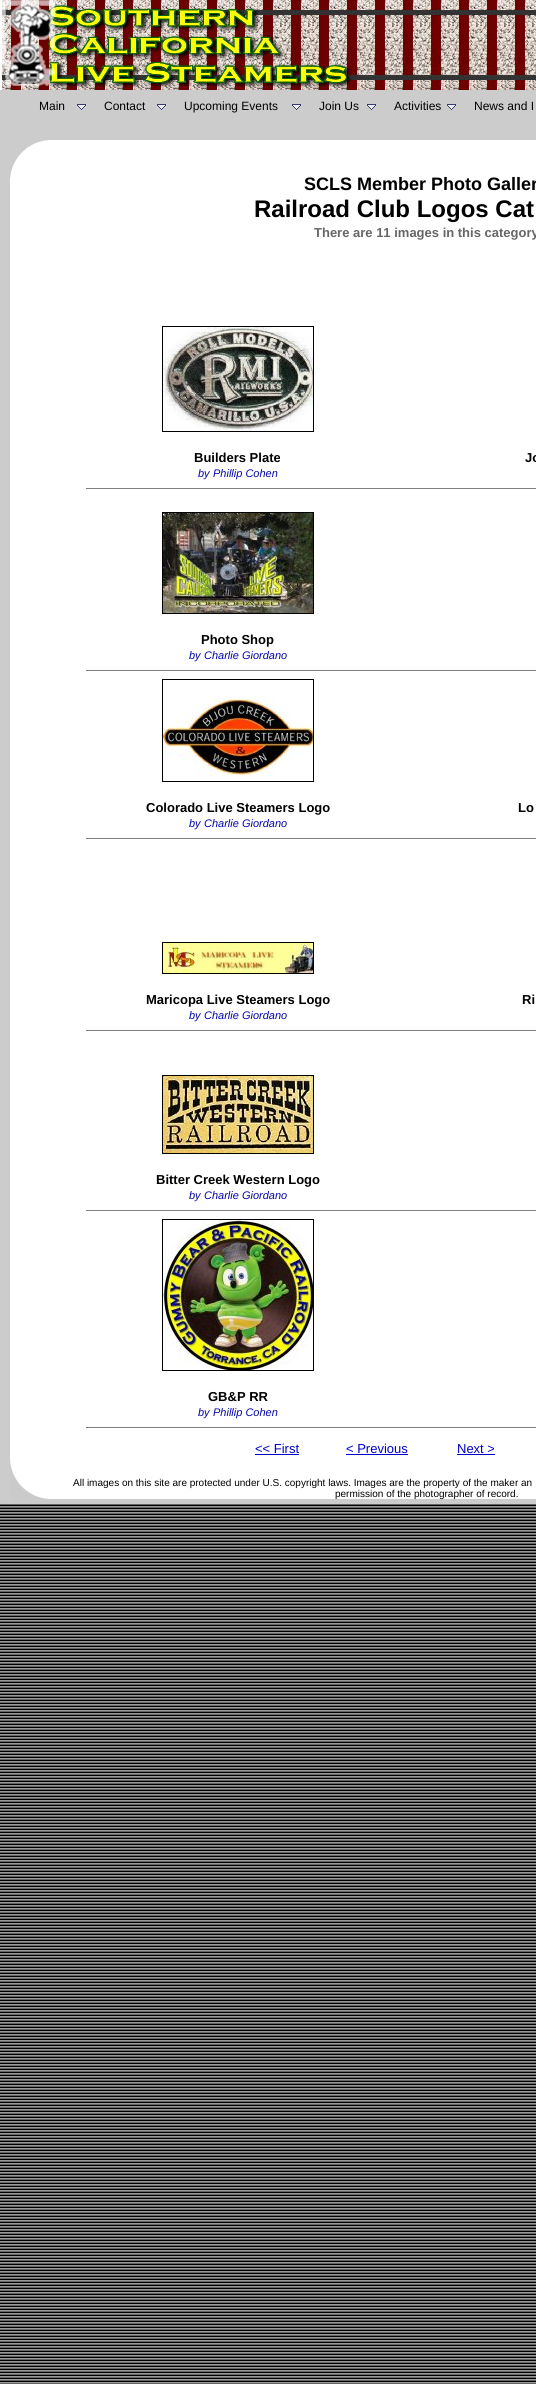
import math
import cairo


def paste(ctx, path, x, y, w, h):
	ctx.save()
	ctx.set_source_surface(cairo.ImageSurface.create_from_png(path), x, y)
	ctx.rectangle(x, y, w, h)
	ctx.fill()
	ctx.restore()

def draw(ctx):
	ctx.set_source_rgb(1, 1, 1)
	ctx.paint()
	paste(ctx, 'media/1.png', 0, 1504, 536, 880)
	paste(ctx, 'media/2.png', 0, 0, 366, 90)
	paste(ctx, 'media/3.png', 366, 0, 170, 90)
	ctx.set_source_rgb(0.8, 0.8, 0.8)
	ctx.rectangle(0, 90, 536, 50)
	ctx.fill()
	ctx.select_font_face('Liberation Sans')
	ctx.set_font_size(12)
	ctx.set_source_rgb(0, 0, 0)
	ctx.move_to(39, 110)
	ctx.show_text('Main')
	paste(ctx, 'media/4.png', 77, 104, 9, 6)
	ctx.move_to(104, 110)
	ctx.show_text('Contact')
	paste(ctx, 'media/4.png', 157, 104, 9, 6)
	ctx.move_to(184, 110)
	ctx.show_text('Upcoming Events')
	paste(ctx, 'media/4.png', 292, 104, 9, 6)
	ctx.move_to(319, 110)
	ctx.show_text('Join Us')
	paste(ctx, 'media/4.png', 367, 104, 9, 6)
	ctx.move_to(394, 110)
	ctx.show_text('Activities')
	paste(ctx, 'media/4.png', 447, 104, 9, 6)
	ctx.move_to(474, 110)
	ctx.show_text('News and I')
	ctx.set_source_rgb(0.8, 0.8, 0.8)
	ctx.rectangle(0, 1499, 536, 5)
	ctx.fill()
	ctx.rectangle(0, 140, 10, 1359)
	ctx.fill()
	paste(ctx, 'media/5.png', 10, 1460, 38, 39)
	paste(ctx, 'media/6.png', 10, 140, 39, 38)
	ctx.select_font_face('Liberation Sans', cairo.FONT_SLANT_NORMAL, cairo.FONT_WEIGHT_BOLD)
	ctx.set_font_size(18)
	ctx.set_source_rgb(0, 0, 0)
	ctx.move_to(304, 190)
	ctx.show_text('SCLS Member Photo Galler')
	ctx.set_font_size(24)
	ctx.move_to(254, 217)
	ctx.show_text('Railroad Club Logos Cat')
	ctx.set_font_size(13)
	ctx.set_source_rgb(0.4, 0.4, 0.4)
	ctx.move_to(314, 237)
	ctx.show_text('There are 11 images in this category')
	ctx.rectangle(162.5, 326.5, 151, 105)
	ctx.set_source_rgb(0, 0, 0)
	ctx.set_line_width(1)
	ctx.stroke()
	paste(ctx, 'media/7.png', 163, 327, 150, 104)
	ctx.move_to(194, 462)
	ctx.show_text('Builders Plate')
	ctx.select_font_face('Liberation Sans', cairo.FONT_SLANT_ITALIC)
	ctx.set_font_size(11)
	ctx.set_source_rgb(0.016, 0.016, 0.659)
	ctx.move_to(198, 477)
	ctx.show_text('by')
	ctx.move_to(213, 477)
	ctx.show_text('Phillip Cohen')
	ctx.select_font_face('Liberation Sans', cairo.FONT_SLANT_NORMAL, cairo.FONT_WEIGHT_BOLD)
	ctx.set_font_size(13)
	ctx.set_source_rgb(0, 0, 0)
	ctx.move_to(525, 462)
	ctx.show_text('Jo')
	ctx.set_source_rgb(0.502, 0.502, 0.502)
	ctx.rectangle(86, 488, 450, 1)
	ctx.fill()
	ctx.rectangle(162.5, 512.5, 151, 101)
	ctx.set_source_rgb(0, 0, 0)
	ctx.stroke()
	paste(ctx, 'media/8.png', 163, 513, 150, 100)
	ctx.move_to(201, 644)
	ctx.show_text('Photo Shop')
	ctx.select_font_face('Liberation Sans', cairo.FONT_SLANT_ITALIC)
	ctx.set_font_size(11)
	ctx.set_source_rgb(0.016, 0.016, 0.659)
	ctx.move_to(189, 659)
	ctx.show_text('by')
	ctx.move_to(204, 659)
	ctx.show_text('Charlie Giordano')
	ctx.set_source_rgb(0.502, 0.502, 0.502)
	ctx.rectangle(86, 670, 450, 1)
	ctx.fill()
	ctx.rectangle(162.5, 679.5, 151, 102)
	ctx.set_source_rgb(0, 0, 0)
	ctx.stroke()
	paste(ctx, 'media/9.png', 163, 696, 150, 80)
	ctx.select_font_face('Liberation Sans', cairo.FONT_SLANT_NORMAL, cairo.FONT_WEIGHT_BOLD)
	ctx.set_font_size(13)
	ctx.move_to(146, 812)
	ctx.show_text('Colorado Live Steamers Logo')
	ctx.select_font_face('Liberation Sans', cairo.FONT_SLANT_ITALIC)
	ctx.set_font_size(11)
	ctx.set_source_rgb(0.016, 0.016, 0.659)
	ctx.move_to(189, 827)
	ctx.show_text('by')
	ctx.move_to(204, 827)
	ctx.show_text('Charlie Giordano')
	ctx.select_font_face('Liberation Sans', cairo.FONT_SLANT_NORMAL, cairo.FONT_WEIGHT_BOLD)
	ctx.set_font_size(13)
	ctx.set_source_rgb(0, 0, 0)
	ctx.move_to(518, 812)
	ctx.show_text('Lo')
	ctx.set_source_rgb(0.502, 0.502, 0.502)
	ctx.rectangle(86, 838, 450, 1)
	ctx.fill()
	ctx.rectangle(162.5, 942.5, 151, 31)
	ctx.set_source_rgb(0, 0, 0)
	ctx.stroke()
	paste(ctx, 'media/10.png', 163, 943, 150, 30)
	ctx.move_to(146, 1004)
	ctx.show_text('Maricopa Live Steamers Logo')
	ctx.select_font_face('Liberation Sans', cairo.FONT_SLANT_ITALIC)
	ctx.set_font_size(11)
	ctx.set_source_rgb(0.016, 0.016, 0.659)
	ctx.move_to(189, 1019)
	ctx.show_text('by')
	ctx.move_to(204, 1019)
	ctx.show_text('Charlie Giordano')
	ctx.select_font_face('Liberation Sans', cairo.FONT_SLANT_NORMAL, cairo.FONT_WEIGHT_BOLD)
	ctx.set_font_size(13)
	ctx.set_source_rgb(0, 0, 0)
	ctx.move_to(522, 1004)
	ctx.show_text('Ri')
	ctx.set_source_rgb(0.502, 0.502, 0.502)
	ctx.rectangle(86, 1030, 450, 1)
	ctx.fill()
	ctx.rectangle(162.5, 1075.5, 151, 78)
	ctx.set_source_rgb(0, 0, 0)
	ctx.stroke()
	paste(ctx, 'media/11.png', 163, 1076, 150, 77)
	ctx.move_to(156, 1184)
	ctx.show_text('Bitter Creek Western Logo')
	ctx.select_font_face('Liberation Sans', cairo.FONT_SLANT_ITALIC)
	ctx.set_font_size(11)
	ctx.set_source_rgb(0.016, 0.016, 0.659)
	ctx.move_to(189, 1199)
	ctx.show_text('by')
	ctx.move_to(204, 1199)
	ctx.show_text('Charlie Giordano')
	ctx.set_source_rgb(0.502, 0.502, 0.502)
	ctx.rectangle(86, 1210, 450, 1)
	ctx.fill()
	ctx.rectangle(162.5, 1219.5, 151, 151)
	ctx.set_source_rgb(0, 0, 0)
	ctx.stroke()
	paste(ctx, 'media/12.png', 163, 1220, 150, 150)
	ctx.select_font_face('Liberation Sans', cairo.FONT_SLANT_NORMAL, cairo.FONT_WEIGHT_BOLD)
	ctx.set_font_size(13)
	ctx.move_to(208, 1401)
	ctx.show_text('GB&P RR')
	ctx.select_font_face('Liberation Sans', cairo.FONT_SLANT_ITALIC)
	ctx.set_font_size(11)
	ctx.set_source_rgb(0.016, 0.016, 0.659)
	ctx.move_to(198, 1416)
	ctx.show_text('by')
	ctx.move_to(213, 1416)
	ctx.show_text('Phillip Cohen')
	ctx.set_source_rgb(0.502, 0.502, 0.502)
	ctx.rectangle(86, 1427, 450, 1)
	ctx.fill()
	ctx.select_font_face('Liberation Sans')
	ctx.set_font_size(13)
	ctx.set_source_rgb(0, 0, 0.8)
	ctx.move_to(255, 1453)
	ctx.show_text('<< First')
	ctx.rectangle(255, 1454, 44, 1)
	ctx.fill()
	ctx.move_to(346, 1453)
	ctx.show_text('< Previous')
	ctx.rectangle(346, 1454, 62, 1)
	ctx.fill()
	ctx.move_to(457, 1453)
	ctx.show_text('Next >')
	ctx.rectangle(457, 1454, 38, 1)
	ctx.fill()
	ctx.set_font_size(10)
	ctx.set_source_rgb(0, 0, 0)
	ctx.move_to(73, 1486)
	ctx.show_text('All images on this site are protected under U.S. copyright laws. Images are the property of the maker an')
	ctx.move_to(335, 1497)
	ctx.show_text('permission of the photographer of record.')


surface = cairo.ImageSurface(cairo.FORMAT_RGB24, 536, 2384)
ctx = cairo.Context(surface)
options = cairo.FontOptions()
options.set_hint_metrics(cairo.HINT_METRICS_OFF)
options.set_hint_style(cairo.HINT_STYLE_NONE)
ctx.set_font_options(options)
ctx.set_miter_limit(4)
draw(ctx)
surface.write_to_png('image.png')
